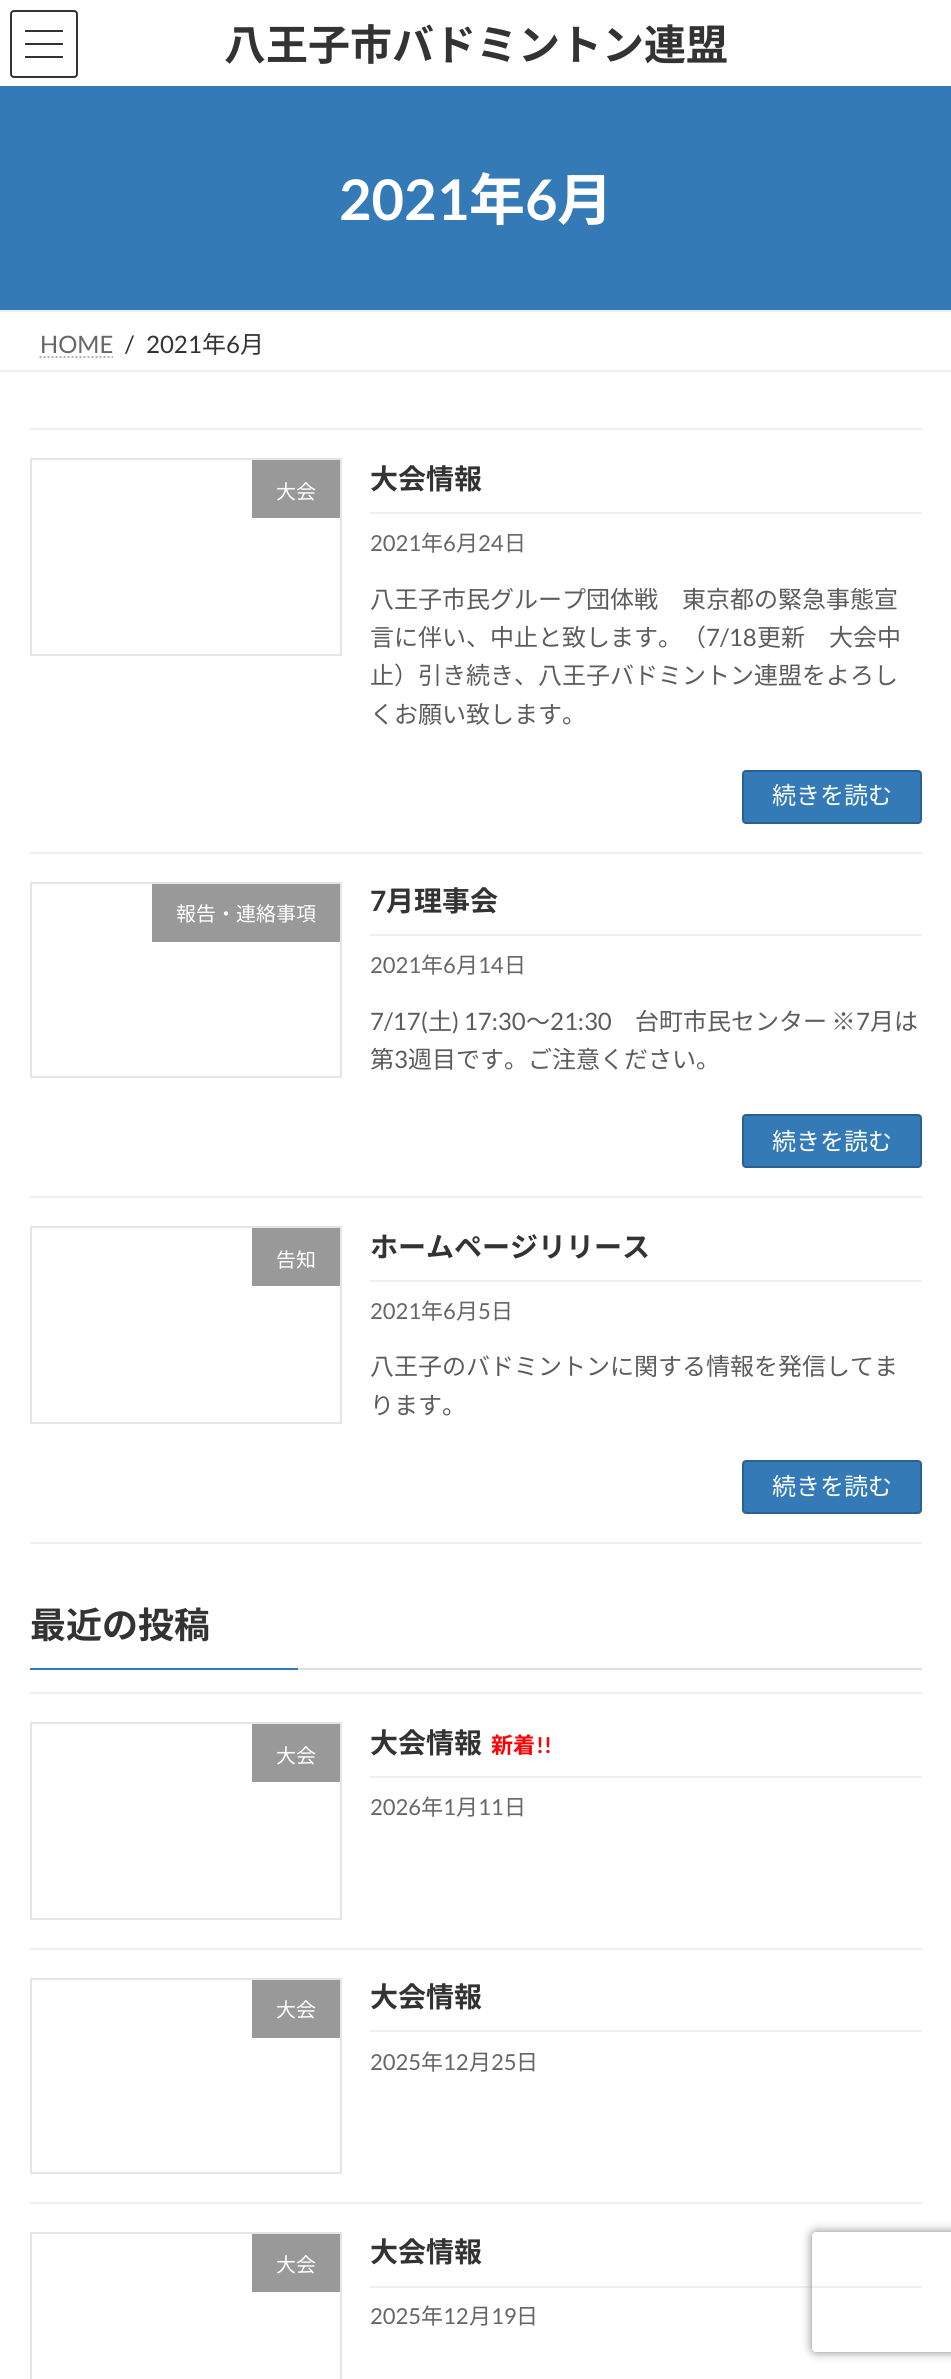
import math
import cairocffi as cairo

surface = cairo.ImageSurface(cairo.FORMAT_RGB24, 951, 2379)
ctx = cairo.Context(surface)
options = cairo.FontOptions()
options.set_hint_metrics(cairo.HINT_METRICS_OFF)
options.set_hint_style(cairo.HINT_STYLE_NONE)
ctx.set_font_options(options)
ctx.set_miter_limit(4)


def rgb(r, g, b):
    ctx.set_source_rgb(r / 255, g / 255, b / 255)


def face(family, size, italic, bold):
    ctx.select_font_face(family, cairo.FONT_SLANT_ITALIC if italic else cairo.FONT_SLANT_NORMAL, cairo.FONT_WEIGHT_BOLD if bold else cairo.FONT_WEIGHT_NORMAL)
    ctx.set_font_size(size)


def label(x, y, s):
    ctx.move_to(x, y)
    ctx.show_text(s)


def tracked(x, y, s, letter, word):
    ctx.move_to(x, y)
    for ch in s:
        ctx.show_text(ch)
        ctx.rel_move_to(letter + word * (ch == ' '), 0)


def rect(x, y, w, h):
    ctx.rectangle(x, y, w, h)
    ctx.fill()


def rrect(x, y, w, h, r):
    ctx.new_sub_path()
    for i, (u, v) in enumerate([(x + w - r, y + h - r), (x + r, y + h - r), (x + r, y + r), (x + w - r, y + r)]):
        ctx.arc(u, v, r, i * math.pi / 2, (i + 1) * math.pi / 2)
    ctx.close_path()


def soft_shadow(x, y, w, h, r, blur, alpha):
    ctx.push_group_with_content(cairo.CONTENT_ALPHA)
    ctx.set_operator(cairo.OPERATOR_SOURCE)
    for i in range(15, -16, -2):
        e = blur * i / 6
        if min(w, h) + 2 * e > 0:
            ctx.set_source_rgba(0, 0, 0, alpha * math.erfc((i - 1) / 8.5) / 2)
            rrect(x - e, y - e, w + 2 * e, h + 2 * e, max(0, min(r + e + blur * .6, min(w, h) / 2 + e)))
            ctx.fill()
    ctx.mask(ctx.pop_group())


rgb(255, 255, 255)
ctx.paint()
rgb(51, 51, 51)
rect(25, 30, 38, 2)
rect(25, 43, 38, 2)
rect(25, 56, 38, 2)
rrect(11, 11, 66, 66, 3)
ctx.stroke()
face('Noto Sans JP', 42, 0, 1)
label(224, 60, '八王子市バドミントン連盟')
rgb(51, 122, 183)
rect(0, 86, 951, 224)
face('Lato', 56, 0, 1)
rgb(255, 255, 255)
label(339, 220, '2021')
face('Noto Sans JP', 56, 0, 1)
label(469, 220, '年')
face('Lato', 56, 0, 1)
label(525, 220, '6')
face('Noto Sans JP', 56, 0, 1)
label(557, 220, '月')
rgb(240, 240, 240)
rect(0, 310, 951, 2)
rect(0, 370, 951, 2)
face('Lato', 24, 0, 0)
rgb(102, 102, 102)
label(40, 353, 'HOME')
ctx.new_path()
ctx.move_to(39.5, 357)
ctx.line_to(113, 357)
rgb(179, 179, 179)
ctx.set_dash([2, 2])
ctx.stroke()
rgb(51, 51, 51)
label(125, 353, '/')
label(146, 353, '2021')
face('Noto Sans JP', 24, 0, 0)
label(202, 353, '年')
face('Lato', 24, 0, 0)
label(226, 353, '6')
face('Noto Sans JP', 24, 0, 0)
label(240, 353, '月')
rgb(240, 240, 240)
rect(30, 428, 892, 2)
rect(30, 852, 892, 2)
ctx.rectangle(31, 459, 310, 196)
rgb(229, 229, 229)
ctx.set_dash([])
ctx.stroke()
rgb(153, 153, 153)
rect(252, 460, 88, 58)
face('Noto Sans JP', 20, 0, 0)
rgb(255, 255, 255)
label(276, 499, '大会')
rgb(240, 240, 240)
rect(370, 512, 552, 2)
face('Noto Sans JP', 28, 0, 1)
rgb(51, 51, 51)
label(370, 489, '大会情報')
face('Lato', 22, 0, 0)
rgb(102, 102, 102)
label(370, 551, '2021')
face('Noto Sans JP', 22, 0, 0)
label(421, 551, '年')
face('Lato', 22, 0, 0)
label(443, 551, '6')
face('Noto Sans JP', 22, 0, 0)
label(456, 551, '月')
face('Lato', 22, 0, 0)
label(478, 551, '24')
face('Noto Sans JP', 22, 0, 0)
label(504, 551, '日')
face('Noto Sans JP', 24, 0, 0)
rgb(92, 92, 92)
label(370, 608, '八王子市民グループ団体戦　東京都の緊急事態宣')
label(370, 646, '言に伴い、中止と致します。（')
face('Lato', 24, 0, 0)
label(706, 646, '7/18')
face('Noto Sans JP', 24, 0, 0)
label(757, 646, '更新　大会中')
label(370, 684, '止）引き続き、八王子バドミントン連盟をよろし')
label(370, 723, 'くお願い致します。')
rgb(51, 122, 183)
rrect(743, 771, 178, 52, 3)
ctx.fill_preserve()
rgb(41, 98, 146)
ctx.stroke()
rgb(255, 255, 255)
label(772, 804, '続きを読む')
rgb(240, 240, 240)
rect(30, 1196, 892, 2)
ctx.rectangle(31, 883, 310, 194)
rgb(229, 229, 229)
ctx.stroke()
rgb(153, 153, 153)
rect(152, 884, 188, 58)
face('Noto Sans JP', 20, 0, 0)
rgb(255, 255, 255)
label(176, 921, '報告・連絡事項')
rgb(240, 240, 240)
rect(370, 934, 552, 2)
face('Lato', 28, 0, 1)
rgb(51, 51, 51)
label(370, 911, '7')
face('Noto Sans JP', 28, 0, 1)
label(386, 911, '月理事会')
face('Lato', 22, 0, 0)
rgb(102, 102, 102)
label(370, 973, '2021')
face('Noto Sans JP', 22, 0, 0)
label(421, 973, '年')
face('Lato', 22, 0, 0)
label(443, 973, '6')
face('Noto Sans JP', 22, 0, 0)
label(456, 973, '月')
face('Lato', 22, 0, 0)
label(478, 973, '14')
face('Noto Sans JP', 22, 0, 0)
label(504, 973, '日')
face('Lato', 24, 0, 0)
rgb(92, 92, 92)
label(370, 1030, '7/17(')
face('Noto Sans JP', 24, 0, 0)
label(428, 1030, '土')
face('Lato', 24, 0, 0)
label(452, 1030, ') 17:30')
face('Noto Sans JP', 24, 0, 0)
label(526, 1030, '〜')
face('Lato', 24, 0, 0)
label(550, 1030, '21:30')
face('Noto Sans JP', 24, 0, 0)
tracked(635, 1030, '台町市民センター ※', 0, -1)
face('Lato', 24, 0, 0)
label(856, 1030, '7')
face('Noto Sans JP', 24, 0, 0)
label(870, 1030, '月は')
label(370, 1068, '第')
face('Lato', 24, 0, 0)
label(394, 1068, '3')
face('Noto Sans JP', 24, 0, 0)
label(408, 1068, '週目です。ご注意ください。')
rgb(51, 122, 183)
rrect(743, 1115, 178, 52, 3)
ctx.fill_preserve()
rgb(41, 98, 146)
ctx.stroke()
rgb(255, 255, 255)
label(772, 1150, '続きを読む')
rgb(240, 240, 240)
rect(30, 1542, 892, 2)
ctx.rectangle(31, 1227, 310, 196)
rgb(229, 229, 229)
ctx.stroke()
rgb(153, 153, 153)
rect(252, 1228, 88, 58)
face('Noto Sans JP', 20, 0, 0)
rgb(255, 255, 255)
label(276, 1267, '告知')
rgb(240, 240, 240)
rect(370, 1280, 552, 2)
face('Noto Sans JP', 28, 0, 1)
rgb(51, 51, 51)
label(370, 1257, 'ホームページリリース')
face('Lato', 22, 0, 0)
rgb(102, 102, 102)
label(370, 1319, '2021')
face('Noto Sans JP', 22, 0, 0)
label(421, 1319, '年')
face('Lato', 22, 0, 0)
label(443, 1319, '6')
face('Noto Sans JP', 22, 0, 0)
label(456, 1319, '月')
face('Lato', 22, 0, 0)
label(478, 1319, '5')
face('Noto Sans JP', 22, 0, 0)
label(491, 1319, '日')
face('Noto Sans JP', 24, 0, 0)
rgb(92, 92, 92)
label(370, 1375, '八王子のバドミントンに関する情報を発信してま')
label(370, 1414, 'ります。')
rgb(51, 122, 183)
rrect(743, 1461, 178, 52, 3)
ctx.fill_preserve()
rgb(41, 98, 146)
ctx.stroke()
rgb(255, 255, 255)
label(772, 1495, '続きを読む')
rgb(224, 224, 224)
rect(298, 1668, 624, 2)
face('Noto Sans JP', 36, 0, 1)
rgb(51, 51, 51)
label(30, 1638, '最近の投稿')
rgb(51, 122, 183)
rect(30, 1668, 268, 2)
rgb(240, 240, 240)
rect(30, 1692, 892, 2)
rect(30, 1948, 892, 2)
ctx.rectangle(31, 1723, 310, 196)
rgb(229, 229, 229)
ctx.stroke()
rgb(153, 153, 153)
rect(252, 1724, 88, 58)
face('Noto Sans JP', 20, 0, 0)
rgb(255, 255, 255)
label(276, 1763, '大会')
rgb(240, 240, 240)
rect(370, 1776, 552, 2)
face('Noto Sans JP', 28, 0, 1)
rgb(51, 51, 51)
label(370, 1753, '大会情報')
face('Noto Sans JP', 22, 0, 1)
rgb(255, 0, 0)
label(491, 1753, '新着')
face('Lato', 22, 0, 1)
label(536, 1753, '!!')
face('Lato', 22, 0, 0)
rgb(102, 102, 102)
label(370, 1815, '2026')
face('Noto Sans JP', 22, 0, 0)
label(421, 1815, '年')
face('Lato', 22, 0, 0)
label(443, 1815, '1')
face('Noto Sans JP', 22, 0, 0)
label(456, 1815, '月')
face('Lato', 22, 0, 0)
label(478, 1815, '11')
face('Noto Sans JP', 22, 0, 0)
label(504, 1815, '日')
rgb(240, 240, 240)
rect(30, 2202, 892, 2)
ctx.rectangle(31, 1979, 310, 194)
rgb(229, 229, 229)
ctx.stroke()
rgb(153, 153, 153)
rect(252, 1980, 88, 58)
face('Noto Sans JP', 20, 0, 0)
rgb(255, 255, 255)
label(276, 2017, '大会')
rgb(240, 240, 240)
rect(370, 2030, 552, 2)
face('Noto Sans JP', 28, 0, 1)
rgb(51, 51, 51)
label(370, 2007, '大会情報')
face('Lato', 22, 0, 0)
rgb(102, 102, 102)
label(370, 2070, '2025')
face('Noto Sans JP', 22, 0, 0)
label(421, 2070, '年')
face('Lato', 22, 0, 0)
label(443, 2070, '12')
face('Noto Sans JP', 22, 0, 0)
label(469, 2070, '月')
face('Lato', 22, 0, 0)
label(491, 2070, '25')
face('Noto Sans JP', 22, 0, 0)
label(516, 2070, '日')
ctx.rectangle(31, 2233, 310, 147)
rgb(229, 229, 229)
ctx.stroke()
rgb(153, 153, 153)
rect(252, 2234, 88, 58)
face('Noto Sans JP', 20, 0, 0)
rgb(255, 255, 255)
label(276, 2272, '大会')
rgb(240, 240, 240)
rect(370, 2286, 552, 2)
face('Noto Sans JP', 28, 0, 1)
rgb(51, 51, 51)
label(370, 2262, '大会情報')
face('Lato', 22, 0, 0)
rgb(102, 102, 102)
label(370, 2324, '2025')
face('Noto Sans JP', 22, 0, 0)
label(421, 2324, '年')
face('Lato', 22, 0, 0)
label(443, 2324, '12')
face('Noto Sans JP', 22, 0, 0)
label(469, 2324, '月')
face('Lato', 22, 0, 0)
label(491, 2324, '19')
face('Noto Sans JP', 22, 0, 0)
label(516, 2324, '日')
ctx.save()
ctx.set_fill_rule(cairo.FILL_RULE_EVEN_ODD)
ctx.new_path()
ctx.move_to(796, 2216)
ctx.line_to(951, 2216)
ctx.line_to(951, 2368)
ctx.line_to(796, 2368)
ctx.close_path()
ctx.move_to(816, 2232)
ctx.line_to(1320, 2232)
ctx.curve_to(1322, 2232, 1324, 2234, 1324, 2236)
ctx.line_to(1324, 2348)
ctx.curve_to(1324, 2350, 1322, 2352, 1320, 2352)
ctx.line_to(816, 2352)
ctx.curve_to(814, 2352, 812, 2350, 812, 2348)
ctx.line_to(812, 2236)
ctx.curve_to(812, 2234, 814, 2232, 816, 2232)
ctx.close_path()
ctx.clip()
rgb(128, 128, 128)
soft_shadow(812, 2232, 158, 120, 4, 5, 1)
ctx.restore()
surface.write_to_png('render.png')
